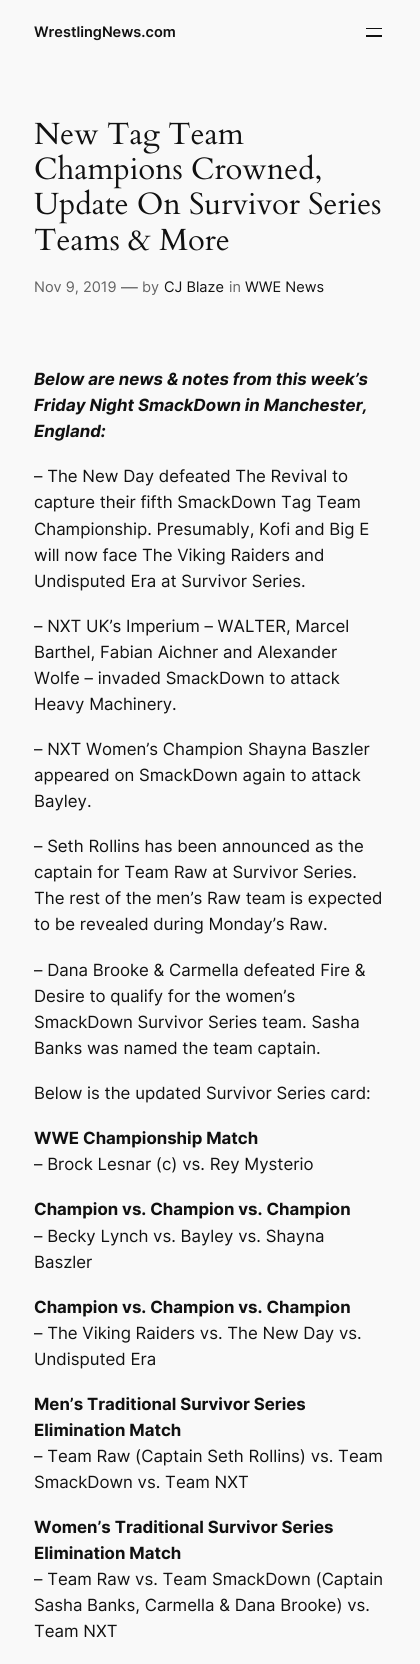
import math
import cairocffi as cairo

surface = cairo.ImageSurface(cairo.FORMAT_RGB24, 420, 1664)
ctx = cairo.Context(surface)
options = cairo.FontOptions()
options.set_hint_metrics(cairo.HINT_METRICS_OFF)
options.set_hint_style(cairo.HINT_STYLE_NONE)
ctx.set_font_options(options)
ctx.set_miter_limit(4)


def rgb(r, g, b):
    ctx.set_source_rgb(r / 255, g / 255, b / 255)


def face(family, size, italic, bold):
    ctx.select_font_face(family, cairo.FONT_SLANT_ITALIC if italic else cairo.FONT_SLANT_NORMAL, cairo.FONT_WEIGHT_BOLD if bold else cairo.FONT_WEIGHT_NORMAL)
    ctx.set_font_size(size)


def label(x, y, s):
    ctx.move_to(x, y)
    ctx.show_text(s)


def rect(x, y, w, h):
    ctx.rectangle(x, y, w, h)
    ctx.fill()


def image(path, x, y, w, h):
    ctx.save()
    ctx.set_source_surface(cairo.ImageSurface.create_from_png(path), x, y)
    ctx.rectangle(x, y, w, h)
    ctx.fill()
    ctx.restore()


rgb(249, 249, 249)
ctx.paint()
face('Inter SemiBold', 14.5, 0, 0)
rgb(17, 17, 17)
label(34, 37, 'WrestlingNews.com')
rect(366, 28, 16, 1)
rect(366, 35, 16, 2)
image('image0.png', 34, 122, 210, 32)
image('image1.png', 35, 154, 286, 35)
image('image2.png', 34, 189, 347, 35)
image('image3.png', 34, 228, 195, 23)
face('Inter', 14.5, 0, 0)
rgb(99, 99, 99)
label(34, 292, 'Nov 9, 2019')
face('Inter', 16.8, 0, 0)
label(121, 293, '—')
face('Inter', 14.5, 0, 0)
label(142, 292, 'by')
rgb(17, 17, 17)
label(164, 292, 'CJ Blaze')
rgb(99, 99, 99)
label(229, 292, 'in')
rgb(17, 17, 17)
label(245, 292, 'WWE News')
face('Inter', 16.8, 1, 1)
label(34, 385, 'Below are news & notes from this week’s')
label(34, 411, 'Friday Night SmackDown in Manchester,')
label(34, 437, 'England:')
face('Inter', 16.8, 0, 0)
label(34, 482, '– The New Day defeated The Revival to')
label(34, 508, 'capture their fifth SmackDown Tag Team')
label(34, 535, 'Championship. Presumably, Kofi and Big E')
label(34, 561, 'will now face The Viking Raiders and')
label(34, 587, 'Undisputed Era at Survivor Series.')
label(34, 632, '– NXT UK’s Imperium – WALTER, Marcel')
label(34, 658, 'Barthel, Fabian Aichner and Alexander')
label(34, 684, 'Wolfe – invaded SmackDown to attack')
label(34, 710, 'Heavy Machinery.')
label(34, 755, '– NXT Women’s Champion Shayna Baszler')
label(34, 781, 'appeared on SmackDown again to attack')
label(34, 807, 'Bayley.')
label(34, 852, '– Seth Rollins has been announced as the')
label(34, 878, 'captain for Team Raw at Survivor Series.')
label(34, 904, 'The rest of the men’s Raw team is expected')
label(34, 930, 'to be revealed during Monday’s Raw.')
label(34, 976, '– Dana Brooke & Carmella defeated Fire &')
label(34, 1002, 'Desire to qualify for the women’s')
label(34, 1028, 'SmackDown Survivor Series team. Sasha')
label(34, 1054, 'Banks was named the team captain.')
label(34, 1099, 'Below is the updated Survivor Series card:')
face('Inter', 16.8, 0, 1)
label(34, 1144, 'WWE Championship Match')
face('Inter', 16.8, 0, 0)
label(34, 1170, '– Brock Lesnar (c) vs. Rey Mysterio')
face('Inter', 16.8, 0, 1)
label(34, 1215, 'Champion vs. Champion vs. Champion')
face('Inter', 16.8, 0, 0)
label(34, 1242, '– Becky Lynch vs. Bayley vs. Shayna')
label(34, 1268, 'Baszler')
face('Inter', 16.8, 0, 1)
label(34, 1313, 'Champion vs. Champion vs. Champion')
face('Inter', 16.8, 0, 0)
label(34, 1339, '– The Viking Raiders vs. The New Day vs.')
label(34, 1365, 'Undisputed Era')
face('Inter', 16.8, 0, 1)
label(34, 1410, 'Men’s Traditional Survivor Series')
label(34, 1436, 'Elimination Match')
face('Inter', 16.8, 0, 0)
label(34, 1462, '– Team Raw (Captain Seth Rollins) vs. Team')
label(34, 1488, 'SmackDown vs. Team NXT')
face('Inter', 16.8, 0, 1)
label(34, 1533, 'Women’s Traditional Survivor Series')
label(34, 1559, 'Elimination Match')
face('Inter', 16.8, 0, 0)
label(34, 1585, '– Team Raw vs. Team SmackDown (Captain')
label(34, 1611, 'Sasha Banks, Carmella & Dana Brooke) vs.')
label(34, 1637, 'Team NXT')
surface.write_to_png('render.png')
